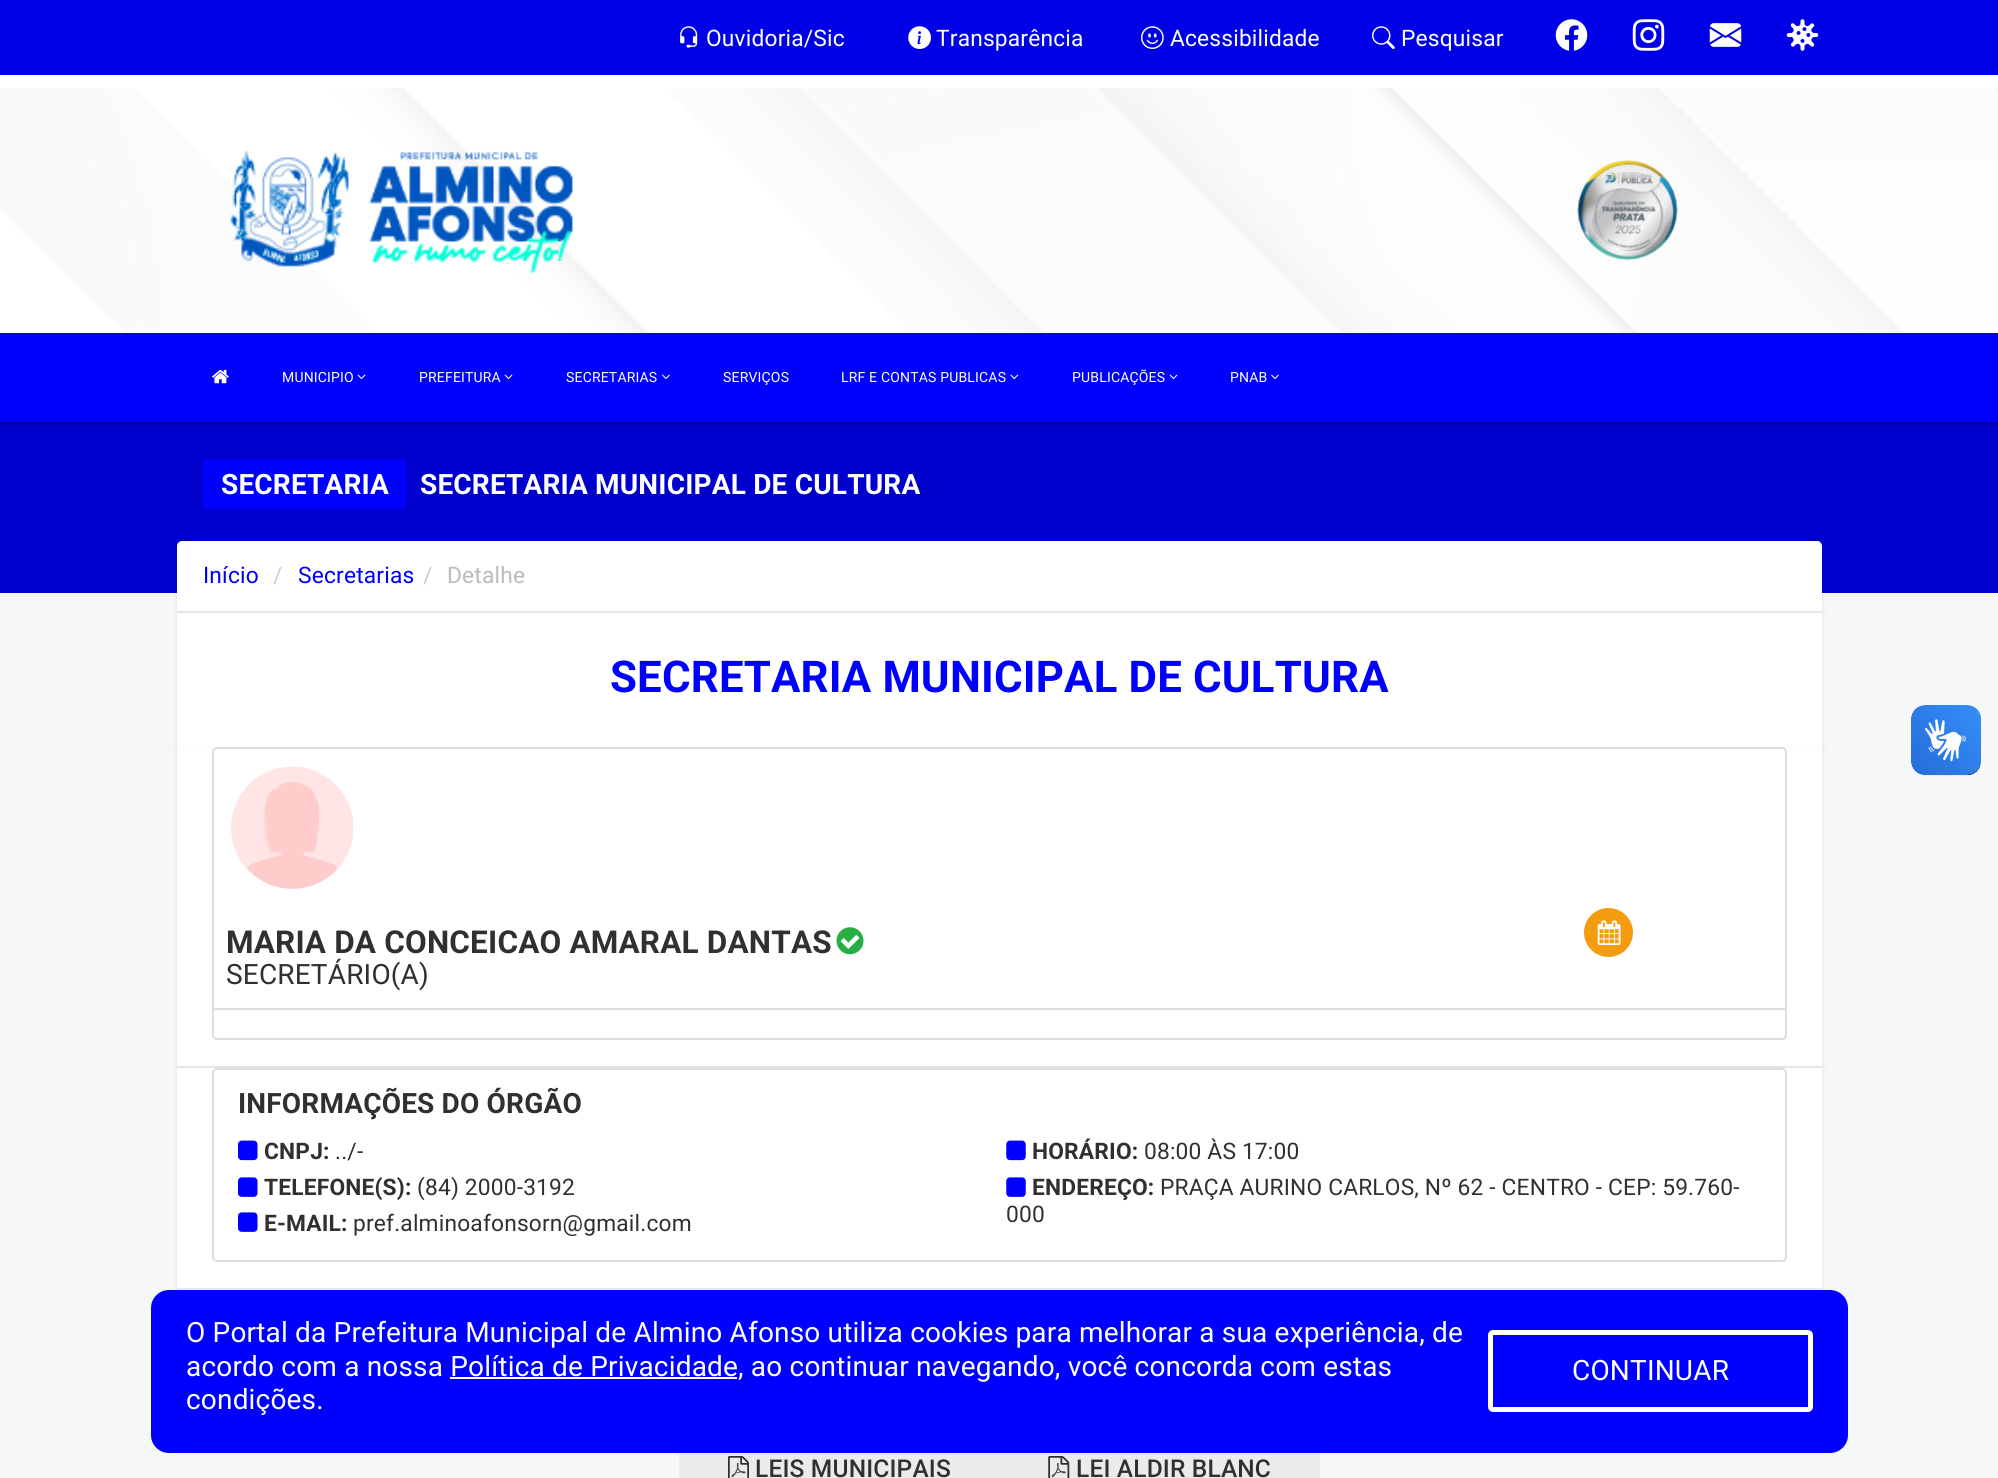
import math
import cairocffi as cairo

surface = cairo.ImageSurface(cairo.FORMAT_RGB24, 1998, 1478)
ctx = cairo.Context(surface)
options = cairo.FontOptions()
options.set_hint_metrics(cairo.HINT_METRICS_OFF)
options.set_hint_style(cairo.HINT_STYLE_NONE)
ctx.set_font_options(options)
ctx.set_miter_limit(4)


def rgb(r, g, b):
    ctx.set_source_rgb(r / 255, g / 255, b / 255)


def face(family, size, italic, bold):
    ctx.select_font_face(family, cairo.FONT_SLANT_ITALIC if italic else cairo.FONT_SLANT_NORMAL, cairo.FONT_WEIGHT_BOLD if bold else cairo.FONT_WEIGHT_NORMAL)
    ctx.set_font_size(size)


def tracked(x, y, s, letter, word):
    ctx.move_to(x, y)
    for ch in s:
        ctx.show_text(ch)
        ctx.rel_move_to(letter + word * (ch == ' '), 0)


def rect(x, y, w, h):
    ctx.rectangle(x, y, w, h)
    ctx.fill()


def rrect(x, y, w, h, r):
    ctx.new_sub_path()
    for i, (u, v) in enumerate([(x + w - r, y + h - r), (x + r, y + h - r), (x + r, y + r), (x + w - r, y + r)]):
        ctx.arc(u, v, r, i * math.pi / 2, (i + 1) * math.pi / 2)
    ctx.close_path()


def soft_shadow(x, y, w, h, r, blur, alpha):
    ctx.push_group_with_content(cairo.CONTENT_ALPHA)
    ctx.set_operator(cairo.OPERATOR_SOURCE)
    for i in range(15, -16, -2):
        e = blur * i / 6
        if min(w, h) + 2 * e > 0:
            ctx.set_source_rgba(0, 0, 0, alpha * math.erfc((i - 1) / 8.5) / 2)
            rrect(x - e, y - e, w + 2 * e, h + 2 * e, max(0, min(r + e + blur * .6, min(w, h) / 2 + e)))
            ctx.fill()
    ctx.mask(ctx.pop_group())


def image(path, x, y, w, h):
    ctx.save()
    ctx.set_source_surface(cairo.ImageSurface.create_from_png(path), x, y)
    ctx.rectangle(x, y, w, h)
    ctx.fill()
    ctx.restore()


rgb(246, 247, 248)
ctx.paint()
rgb(3, 0, 71)
soft_shadow(177, 543, 1645, 70, 0, 2.5, 0.09)
rgb(0, 0, 205)
rect(0, 422, 1998, 171)
rgb(0, 0, 0)
soft_shadow(0, 2, 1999, 422, 0, 2, 0.3)
image('image0.png', 0, 88, 1998, 245)
rgb(0, 0, 230)
rect(0, 0, 1998, 75)
image('image1.png', 680, 26, 18, 22)
face('Roboto', 22.75, 0, 0)
rgb(255, 255, 255)
tracked(706, 46, 'Ouvidoria/Sic', 0.18, 0)
image('image2.png', 908, 26, 23, 23)
tracked(936, 46, 'Transparência', 0.18, 0)
image('image3.png', 1141, 26, 23, 23)
tracked(1170, 46, 'Acessibilidade', 0.18, 0)
image('image4.png', 1372, 26, 23, 23)
tracked(1401, 46, 'Pesquisar', 0.18, 0)
image('image5.png', 1555, 19, 33, 32)
image('image6.png', 1632, 19, 33, 32)
image('image7.png', 1709, 23, 33, 24)
image('image8.png', 1786, 19, 33, 32)
rect(0, 75, 1998, 13)
image('image9.png', 229, 150, 344, 124)
image('image10.png', 1577, 159, 101, 102)
rgb(0, 0, 255)
rect(0, 333, 1998, 89)
image('image11.png', 212, 369, 17, 15)
face('Roboto', 14, 0, 0)
rgb(255, 255, 255)
tracked(282, 382, 'MUNICIPIO', 0.18, 0)
image('image12.png', 357, 374, 9, 6)
tracked(419, 382, 'PREFEITURA', 0.18, 0)
image('image12.png', 504, 374, 9, 6)
tracked(566, 382, 'SECRETARIAS', 0.18, 0)
image('image13.png', 662, 374, 8, 6)
tracked(723, 382, 'SERVIÇOS', 0.18, 0)
tracked(841, 382, 'LRF E CONTAS PUBLICAS', 0.18, 0)
image('image14.png', 1010, 374, 9, 6)
tracked(1072, 382, 'PUBLICAÇÕES', 0.18, 0)
image('image12.png', 1169, 374, 9, 6)
tracked(1230, 382, 'PNAB', 0.18, 0)
image('image13.png', 1271, 374, 8, 6)
rgb(0, 0, 255)
rect(203, 459, 203, 50)
face('Roboto', 28, 0, 1)
rgb(255, 255, 255)
tracked(221, 494, 'SECRETARIA', 0.18, 0)
tracked(420, 494, 'SECRETARIA MUNICIPAL DE CULTURA', 0.18, 0)
rect(177, 606, 1645, 5)
rgb(3, 0, 71)
soft_shadow(177, 614, 1645, 135, 0, 2.5, 0.09)
rgb(255, 255, 255)
rrect(177, 541, 1645, 70, 5)
ctx.fill()
face('Roboto', 22.75, 0, 0)
rgb(0, 0, 255)
tracked(203, 583, 'Início', 0.18, 0)
rgb(204, 204, 204)
tracked(273, 583, '/', 0.18, 0)
rgb(0, 0, 255)
tracked(298, 583, 'Secretarias', 0.18, 0)
rgb(204, 204, 204)
tracked(423, 583, '/', 0.18, 0)
rgb(187, 187, 187)
tracked(447, 583, 'Detalhe', 0.18, 0)
rgb(255, 255, 255)
rect(177, 613, 1645, 134)
face('Roboto', 43.75, 0, 1)
rgb(0, 0, 255)
tracked(610, 692, 'SECRETARIA MUNICIPAL DE CULTURA', 0.18, 0)
rgb(3, 0, 71)
soft_shadow(177, 749, 1645, 319, 0, 2.5, 0.09)
rgb(255, 255, 255)
rect(177, 747, 1645, 319)
rrect(213, 748, 1573, 291, 4)
rgb(221, 221, 221)
ctx.stroke()
rect(214, 1008, 1571, 2)
image('image15.png', 231, 766, 123, 123)
face('Roboto', 31.5, 0, 1)
rgb(48, 48, 48)
tracked(226, 953, 'MARIA DA CONCEICAO AMARAL DANTAS', 0.18, 0)
image('image16.png', 836, 927, 28, 28)
face('Roboto', 28, 0, 0)
tracked(226, 984, 'SECRETÁRIO(A)', 0.18, 0)
rgb(243, 156, 18)
ctx.new_path()
ctx.arc(1608.5, 932.5, 23.5, 0, 2 * math.pi)
ctx.fill_preserve()
ctx.stroke()
image('image17.png', 1597, 920, 24, 25)
rgb(3, 0, 71)
soft_shadow(177, 1069, 1645, 221, 0, 2.5, 0.09)
rgb(255, 255, 255)
rect(177, 1068, 1645, 220)
rrect(213, 1069, 1573, 192, 4)
rgb(221, 221, 221)
ctx.stroke()
face('Roboto', 28, 0, 1)
rgb(48, 48, 48)
tracked(238, 1113, 'INFORMAÇÕES DO ÓRGÃO', 0.18, 0)
image('image18.png', 238, 1140, 20, 21)
face('Roboto', 22.75, 0, 1)
tracked(264, 1159, 'CNPJ:', 0.18, 0)
face('Roboto', 22.75, 0, 0)
tracked(335, 1159, '../-', 0.18, 0)
image('image19.png', 238, 1177, 20, 20)
face('Roboto', 22.75, 0, 1)
tracked(264, 1195, 'TELEFONE(S):', 0.18, 0)
face('Roboto', 22.75, 0, 0)
tracked(417, 1195, '(84) 2000-3192', 0.18, 0)
image('image19.png', 238, 1212, 20, 20)
face('Roboto', 22.75, 0, 1)
tracked(264, 1231, 'E-MAIL:', 0.18, 0)
face('Roboto', 22.75, 0, 0)
tracked(353, 1231, 'pref.alminoafonsorn@gmail.com', 0.18, 0)
image('image20.png', 1006, 1140, 20, 21)
face('Roboto', 22.75, 0, 1)
tracked(1032, 1159, 'HORÁRIO:', 0.18, 0)
face('Roboto', 22.75, 0, 0)
tracked(1144, 1159, '08:00 ÀS 17:00', 0.18, 0)
image('image21.png', 1006, 1177, 20, 20)
face('Roboto', 22.75, 0, 1)
tracked(1032, 1195, 'ENDEREÇO:', 0.18, 0)
face('Roboto', 22.75, 0, 0)
tracked(1160, 1195, 'PRAÇA AURINO CARLOS, Nº 62 - CENTRO - CEP: 59.760-', 0.18, 0)
tracked(1006, 1222, '000', 0.18, 0)
rgb(234, 235, 236)
rect(679, 1453, 641, 25)
image('image22.png', 728, 1456, 21, 22)
face('Roboto Medium', 24.5, 0, 0)
rgb(48, 48, 48)
tracked(755, 1477, 'LEIS MUNICIPAIS', 0.18, 0)
image('image23.png', 1048, 1456, 22, 22)
tracked(1076, 1477, 'LEI ALDIR BLANC', 0.18, 0)
image('image24.png', 1911, 705, 70, 71)
image('image25.png', 1911, 705, 70, 70)
rgb(0, 0, 255)
rrect(151, 1290, 1697, 163, 18)
ctx.fill()
face('Roboto', 28, 0, 0)
rgb(255, 255, 255)
tracked(186, 1342, 'O Portal da Prefeitura Municipal de Almino Afonso utiliza cookies para melhorar a sua experiência, de', 0.18, 0)
tracked(186, 1376, 'acordo com a nossa Política de Privacidade, ao continuar navegando, você concorda com estas', 0.18, 0)
rect(450, 1377, 287, 2)
tracked(186, 1409, 'condições.', 0.18, 0)
rrect(1490.5, 1332.5, 320, 77, 2.5)
ctx.set_line_width(5)
ctx.stroke()
tracked(1572, 1380, 'CONTINUAR', 0.18, 0)
surface.write_to_png('render.png')
